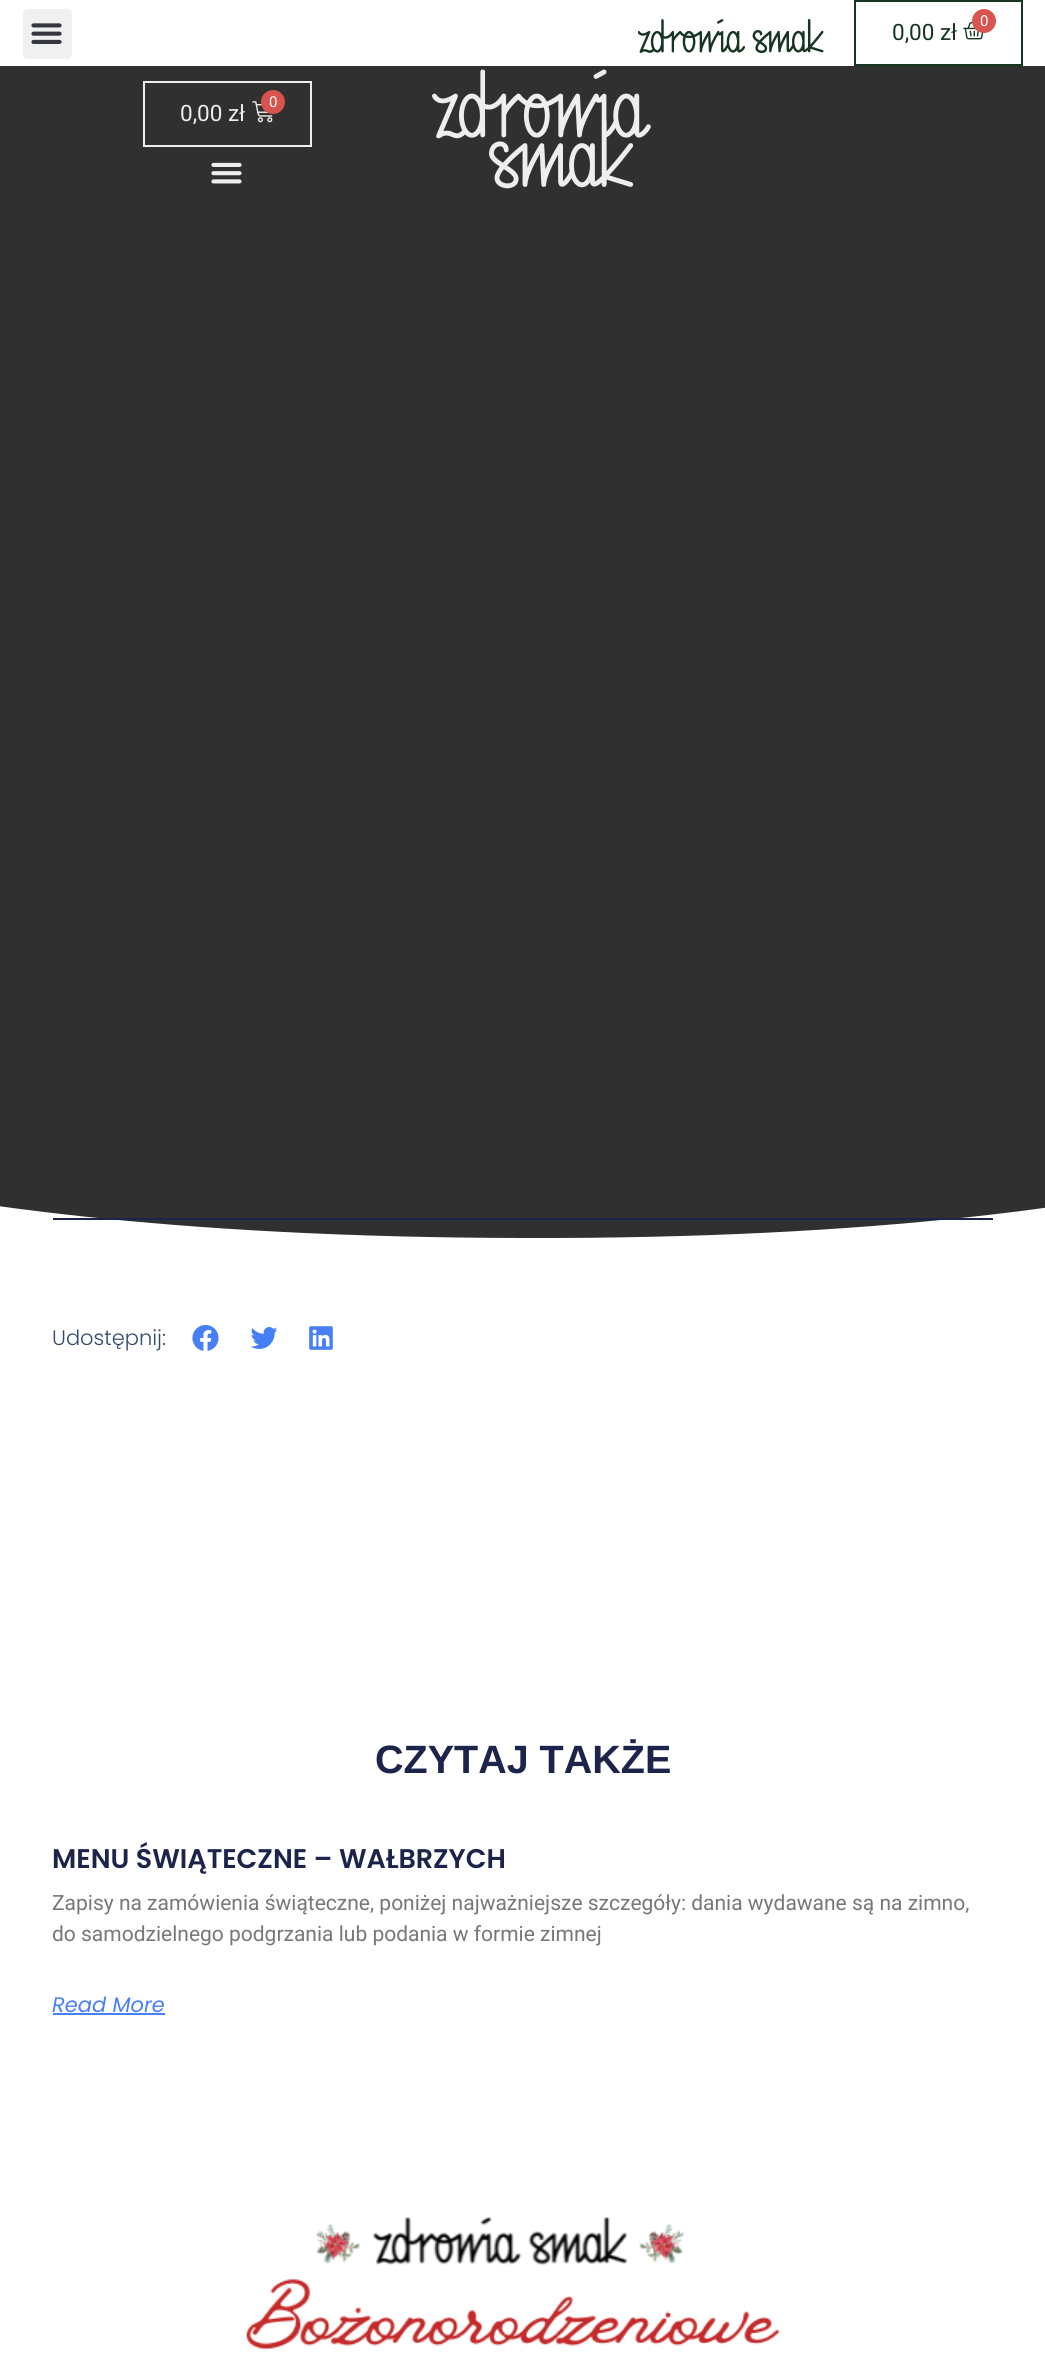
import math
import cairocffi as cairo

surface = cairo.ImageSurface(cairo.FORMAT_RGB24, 1045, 2355)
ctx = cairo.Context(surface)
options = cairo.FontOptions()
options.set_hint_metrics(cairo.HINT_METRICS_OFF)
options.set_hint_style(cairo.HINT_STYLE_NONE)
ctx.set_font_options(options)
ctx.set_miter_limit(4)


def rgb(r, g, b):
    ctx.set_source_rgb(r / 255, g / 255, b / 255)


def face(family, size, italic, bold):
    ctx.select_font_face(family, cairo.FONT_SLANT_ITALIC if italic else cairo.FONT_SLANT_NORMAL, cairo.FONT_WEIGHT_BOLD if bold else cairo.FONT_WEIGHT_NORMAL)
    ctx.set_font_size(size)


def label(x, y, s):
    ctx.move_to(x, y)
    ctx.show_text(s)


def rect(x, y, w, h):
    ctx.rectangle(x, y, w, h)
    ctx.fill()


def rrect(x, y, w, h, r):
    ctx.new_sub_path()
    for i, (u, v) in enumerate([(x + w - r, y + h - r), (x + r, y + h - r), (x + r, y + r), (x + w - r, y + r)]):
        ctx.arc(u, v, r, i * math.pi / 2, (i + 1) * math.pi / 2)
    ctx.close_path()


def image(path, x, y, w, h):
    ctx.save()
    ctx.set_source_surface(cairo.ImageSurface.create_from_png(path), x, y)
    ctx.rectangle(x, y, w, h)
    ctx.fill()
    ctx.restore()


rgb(255, 255, 255)
ctx.paint()
rgb(240, 240, 240)
rrect(23, 9, 49, 50, 5)
ctx.fill()
image('image0.png', 31, 23, 31, 21)
image('image1.png', 638, 19, 186, 35)
ctx.rectangle(855, 1, 167, 64)
rgb(23, 54, 33)
ctx.stroke()
image('image2.png', 963, 22, 21, 18)
rgb(217, 83, 79)
ctx.arc(984, 21, 12, 0, 2 * math.pi)
ctx.fill()
face('Roboto', 15, 0, 0)
rgb(255, 255, 255)
label(980, 26, '0')
face('Roboto', 22.5, 0, 0)
rgb(23, 54, 33)
label(892, 40, '0,00 zł')
rgb(48, 48, 48)
rect(0, 66, 1045, 1172)
rgb(255, 255, 255)
ctx.new_path()
ctx.move_to(524, 1238)
ctx.curve_to(-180, 1237, -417, 1104, -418, 1070)
ctx.line_to(-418, 1244)
ctx.line_to(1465, 1244)
ctx.line_to(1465, 1071)
ctx.curve_to(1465, 1103, 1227, 1240, 524, 1238)
ctx.close_path()
ctx.fill()
ctx.rectangle(144, 82, 167, 64)
rgb(238, 238, 238)
ctx.stroke()
image('image3.png', 252, 101, 21, 22)
rgb(217, 83, 79)
ctx.arc(273, 102, 12, 0, 2 * math.pi)
ctx.fill()
face('Roboto', 15, 0, 0)
rgb(255, 255, 255)
label(269, 107, '0')
face('Roboto', 22.5, 0, 0)
rgb(238, 238, 238)
label(180, 121, '0,00 zł')
image('image4.png', 211, 162, 31, 22)
image('image5.png', 432, 69, 219, 120)
rgb(28, 36, 75)
rect(53, 1218, 940, 2)
face('Poppins Light', 21, 0, 0)
rgb(50, 74, 109)
label(52, 1345, 'Udostępnij:')
image('image6.png', 192, 1325, 27, 26)
image('image7.png', 251, 1327, 27, 22)
image('image8.png', 309, 1326, 24, 24)
face('Arimo', 39.5, 0, 1)
rgb(28, 36, 75)
label(375, 1773, 'CZYTAJ TAKŻE')
face('Poppins SemiBold', 27, 0, 0)
label(52, 1868, 'MENU ŚWIĄTECZNE – WAŁBRZYCH')
face('Roboto', 21, 0, 0)
rgb(119, 119, 119)
label(52, 1910, 'Zapisy na zamówienia świąteczne, poniżej najważniejsze szczegóły: dania wydawane są na zimno,')
label(52, 1941, 'do samodzielnego podgrzania lub podania w formie zimnej')
face('Poppins', 21, 1, 0)
rgb(70, 127, 247)
label(52, 2012, 'Read More')
rect(53, 2013, 112, 2)
image('image9.png', 246, 2217, 534, 133)
surface.write_to_png('render.png')
